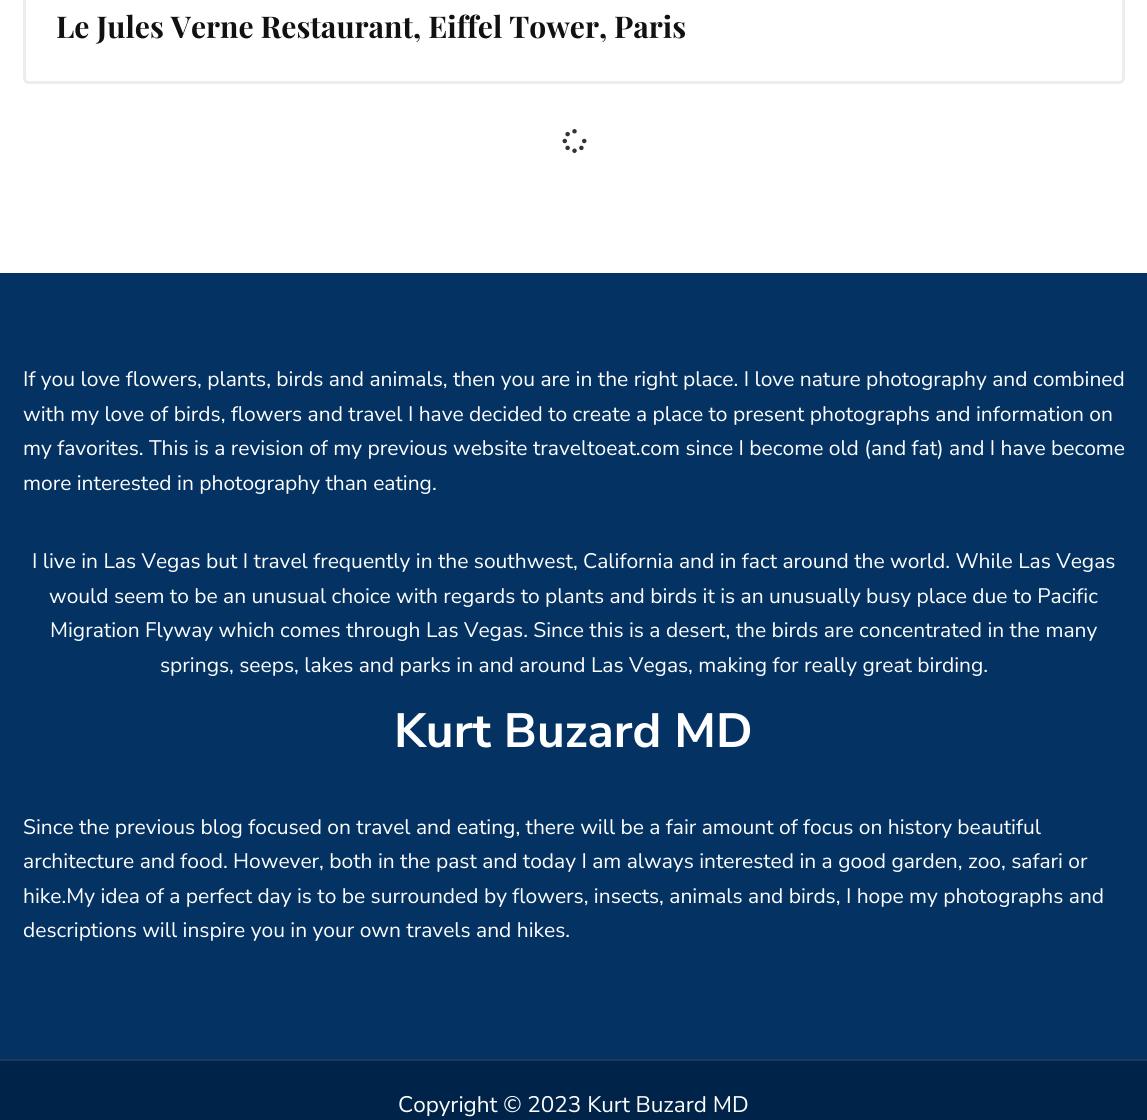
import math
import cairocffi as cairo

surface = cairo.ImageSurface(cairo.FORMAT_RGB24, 1147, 1120)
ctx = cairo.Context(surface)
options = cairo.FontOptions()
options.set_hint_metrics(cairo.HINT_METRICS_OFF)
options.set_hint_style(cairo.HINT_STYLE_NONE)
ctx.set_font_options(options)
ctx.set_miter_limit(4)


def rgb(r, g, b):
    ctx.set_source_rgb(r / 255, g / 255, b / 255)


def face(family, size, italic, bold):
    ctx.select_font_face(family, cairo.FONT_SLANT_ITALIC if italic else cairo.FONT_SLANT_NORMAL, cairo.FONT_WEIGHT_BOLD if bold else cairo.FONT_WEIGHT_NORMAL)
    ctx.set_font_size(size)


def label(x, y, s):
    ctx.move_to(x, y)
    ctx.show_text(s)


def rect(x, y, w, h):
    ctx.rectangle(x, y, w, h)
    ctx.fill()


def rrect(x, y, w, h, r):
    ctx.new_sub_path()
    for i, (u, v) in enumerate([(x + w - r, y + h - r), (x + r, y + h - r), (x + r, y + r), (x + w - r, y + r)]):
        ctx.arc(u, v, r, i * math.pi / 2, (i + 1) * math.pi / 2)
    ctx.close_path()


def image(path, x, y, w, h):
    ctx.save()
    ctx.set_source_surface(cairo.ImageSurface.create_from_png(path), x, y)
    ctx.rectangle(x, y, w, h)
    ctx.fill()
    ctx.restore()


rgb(255, 255, 255)
ctx.paint()
rrect(24.5, -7.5, 1099, 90, 4.5)
rgb(237, 237, 237)
ctx.set_line_width(3)
ctx.stroke()
face('Playfair Display', 30, 0, 1)
rgb(17, 17, 17)
label(56, 38, 'Le Jules Verne Restaurant, Eiffel Tower, Paris')
image('image0.png', 562, 129, 25, 24)
rgb(4, 51, 99)
rect(0, 273, 1147, 786)
face('Nunito Sans', 21, 0, 0)
rgb(255, 255, 255)
label(23, 386, 'If you love flowers, plants, birds and animals, then you are in the right place. I love nature photography and combined')
label(23, 421, 'with my love of birds, flowers and travel I have decided to create a place to present photographs and information on')
label(23, 455, 'my favorites. This is a revision of my previous website traveltoeat.com since I become old (and fat) and I have become')
label(23, 490, 'more interested in photography than eating.')
label(32, 568, 'I live in Las Vegas but I travel frequently in the southwest, California and in fact around the world. While Las Vegas')
label(49, 603, 'would seem to be an unusual choice with regards to plants and birds it is an unusually busy place due to Pacific')
label(50, 637, 'Migration Flyway which comes through Las Vegas. Since this is a desert, the birds are concentrated in the many')
label(160, 672, 'springs, seeps, lakes and parks in and around Las Vegas, making for really great birding.')
face('Nunito Sans', 48, 0, 1)
label(394, 747, 'Kurt Buzard MD')
face('Nunito Sans', 21, 0, 0)
label(23, 834, 'Since the previous blog focused on travel and eating, there will be a fair amount of focus on history beautiful')
label(23, 868, 'architecture and food. However, both in the past and today I am always interested in a good garden, zoo, safari or')
label(23, 903, 'hike.My idea of a perfect day is to be surrounded by flowers, insects, animals and birds, I hope my photographs and')
label(23, 937, 'descriptions will inspire you in your own travels and hikes.')
rgb(0, 36, 73)
rect(0, 1061, 1147, 59)
rgb(26, 58, 91)
rect(0, 1059, 1147, 2)
face('Nunito Sans', 22.5, 0, 0)
rgb(255, 255, 255)
label(398, 1112, 'Copyright © 2023 Kurt Buzard MD')
surface.write_to_png('render.png')
